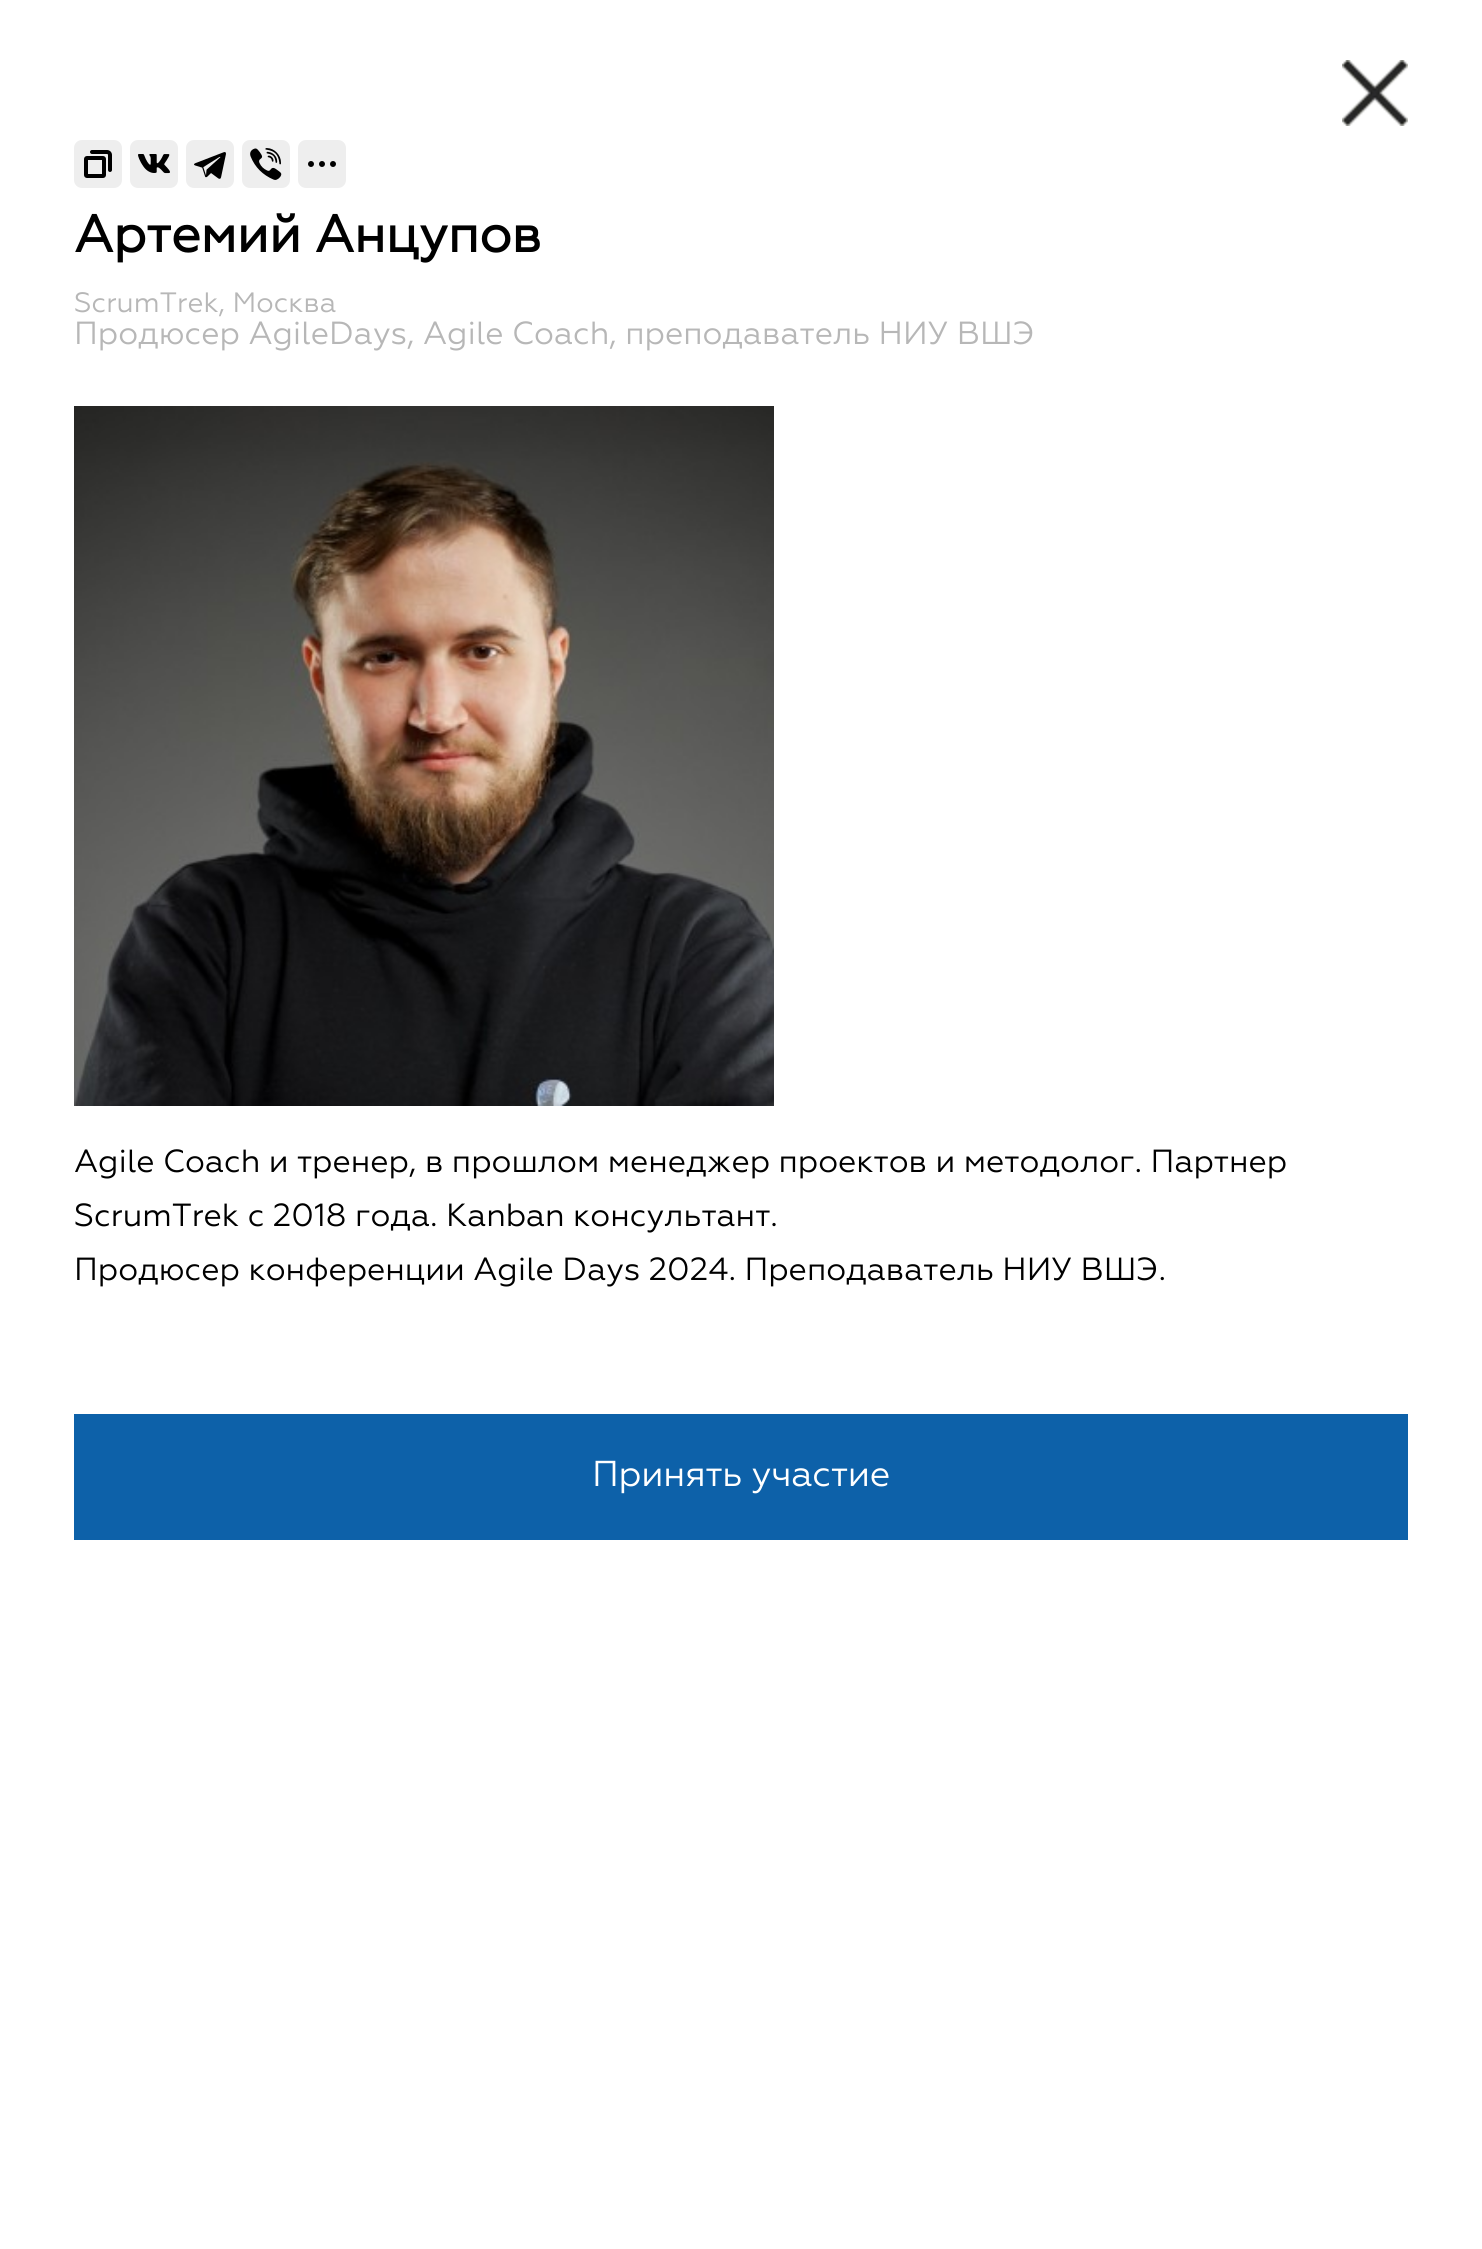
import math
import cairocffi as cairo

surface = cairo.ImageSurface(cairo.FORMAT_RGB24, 1482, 2249)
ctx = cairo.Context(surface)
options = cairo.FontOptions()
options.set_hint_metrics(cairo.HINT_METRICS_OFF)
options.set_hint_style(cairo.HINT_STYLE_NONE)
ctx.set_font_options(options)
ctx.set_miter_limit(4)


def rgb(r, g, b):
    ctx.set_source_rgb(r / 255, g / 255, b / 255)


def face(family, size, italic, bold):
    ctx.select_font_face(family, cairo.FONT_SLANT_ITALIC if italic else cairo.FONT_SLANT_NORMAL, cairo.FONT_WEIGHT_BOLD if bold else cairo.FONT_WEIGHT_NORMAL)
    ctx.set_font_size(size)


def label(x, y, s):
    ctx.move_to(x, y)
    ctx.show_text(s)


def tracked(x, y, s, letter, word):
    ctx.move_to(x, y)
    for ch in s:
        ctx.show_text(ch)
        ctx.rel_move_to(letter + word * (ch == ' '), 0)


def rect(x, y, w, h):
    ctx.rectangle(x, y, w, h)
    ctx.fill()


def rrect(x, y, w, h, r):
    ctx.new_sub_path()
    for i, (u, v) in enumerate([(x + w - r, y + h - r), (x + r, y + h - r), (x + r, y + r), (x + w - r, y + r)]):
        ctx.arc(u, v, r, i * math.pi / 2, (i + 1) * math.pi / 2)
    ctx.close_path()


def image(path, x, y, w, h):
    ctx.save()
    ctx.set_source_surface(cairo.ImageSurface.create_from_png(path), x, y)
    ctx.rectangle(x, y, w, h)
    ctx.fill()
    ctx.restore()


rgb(255, 255, 255)
ctx.paint()
image('image0.png', 1342, 60, 66, 66)
rgb(238, 238, 238)
rrect(74, 140, 48, 48, 8)
ctx.fill()
image('image1.png', 84, 150, 28, 28)
rrect(130, 140, 48, 48, 8)
ctx.fill()
image('image2.png', 138, 154, 32, 20)
rrect(186, 140, 48, 48, 8)
ctx.fill()
image('image3.png', 194, 152, 32, 27)
rrect(242, 140, 48, 48, 8)
ctx.fill()
image('image4.png', 250, 148, 32, 32)
rrect(298, 140, 48, 48, 8)
ctx.fill()
image('image5.png', 308, 161, 28, 6)
face('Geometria', 52, 0, 1)
rgb(0, 0, 0)
label(74, 252, 'Артемий Анцупов')
face('Geometria', 28, 0, 0)
rgb(183, 183, 183)
label(74, 312, 'ScrumTrek, Москва')
face('Geometria', 32, 0, 0)
label(74, 344, 'Продюсер AgileDays, Agile Coach, преподаватель НИУ ВШЭ')
image('image6.png', 74, 406, 700, 700)
rgb(0, 0, 0)
label(74, 1172, 'Agile Coach и тренер, в прошлом менеджер проектов и методолог. Партнер')
label(74, 1226, 'ScrumTrek c 2018 года. Kanban консультант.')
label(74, 1280, 'Продюсер конференции Agile Days 2024. Преподаватель НИУ ВШЭ.')
rgb(13, 97, 169)
rect(74, 1414, 1334, 126)
face('Geometria', 36, 0, 0)
rgb(255, 255, 255)
tracked(592, 1486, 'Принять участие', -0.25, 0)
surface.write_to_png('render.png')
